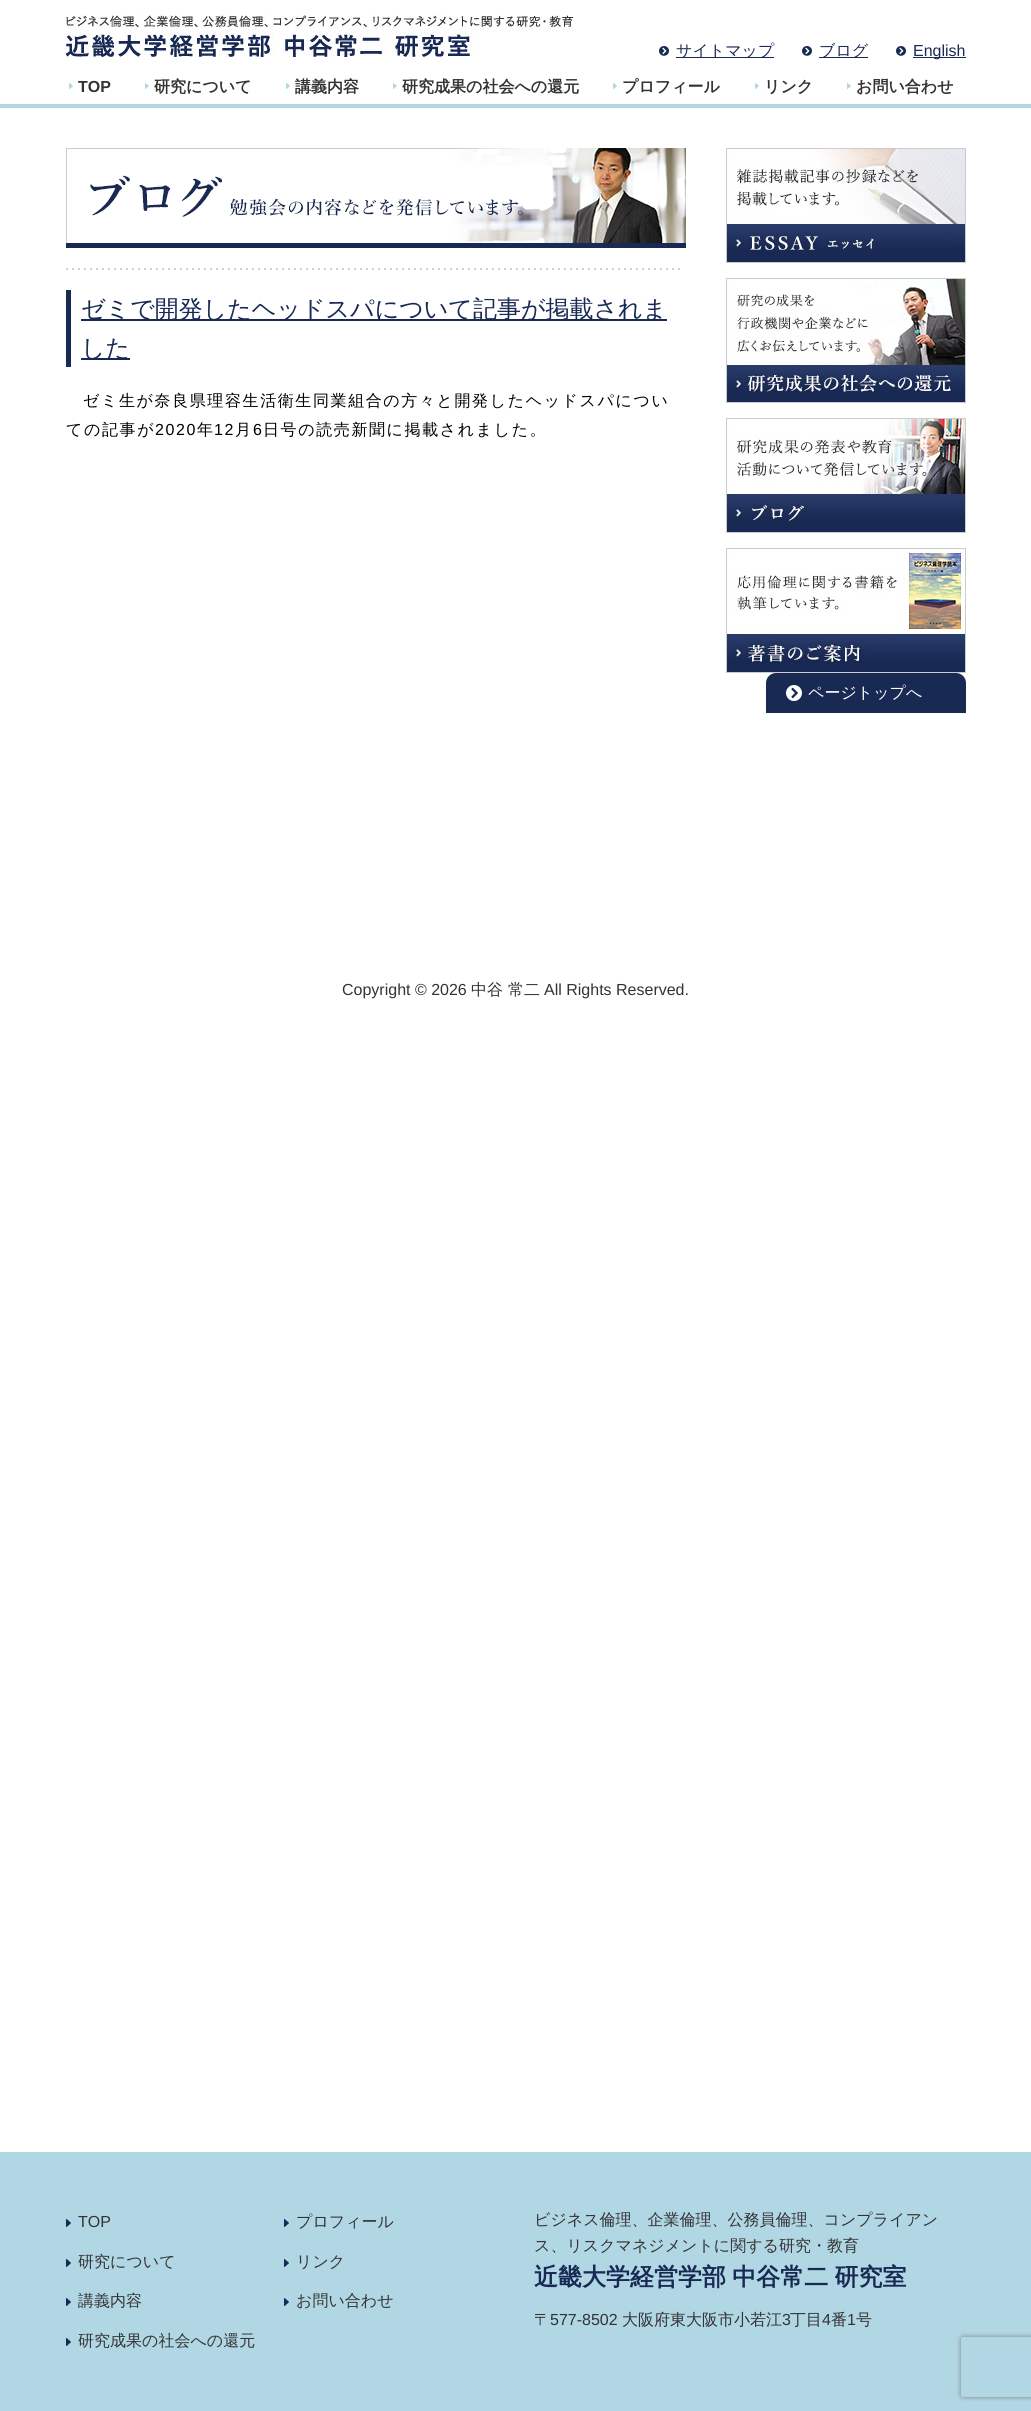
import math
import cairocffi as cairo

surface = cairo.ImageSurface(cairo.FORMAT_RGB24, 1031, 2411)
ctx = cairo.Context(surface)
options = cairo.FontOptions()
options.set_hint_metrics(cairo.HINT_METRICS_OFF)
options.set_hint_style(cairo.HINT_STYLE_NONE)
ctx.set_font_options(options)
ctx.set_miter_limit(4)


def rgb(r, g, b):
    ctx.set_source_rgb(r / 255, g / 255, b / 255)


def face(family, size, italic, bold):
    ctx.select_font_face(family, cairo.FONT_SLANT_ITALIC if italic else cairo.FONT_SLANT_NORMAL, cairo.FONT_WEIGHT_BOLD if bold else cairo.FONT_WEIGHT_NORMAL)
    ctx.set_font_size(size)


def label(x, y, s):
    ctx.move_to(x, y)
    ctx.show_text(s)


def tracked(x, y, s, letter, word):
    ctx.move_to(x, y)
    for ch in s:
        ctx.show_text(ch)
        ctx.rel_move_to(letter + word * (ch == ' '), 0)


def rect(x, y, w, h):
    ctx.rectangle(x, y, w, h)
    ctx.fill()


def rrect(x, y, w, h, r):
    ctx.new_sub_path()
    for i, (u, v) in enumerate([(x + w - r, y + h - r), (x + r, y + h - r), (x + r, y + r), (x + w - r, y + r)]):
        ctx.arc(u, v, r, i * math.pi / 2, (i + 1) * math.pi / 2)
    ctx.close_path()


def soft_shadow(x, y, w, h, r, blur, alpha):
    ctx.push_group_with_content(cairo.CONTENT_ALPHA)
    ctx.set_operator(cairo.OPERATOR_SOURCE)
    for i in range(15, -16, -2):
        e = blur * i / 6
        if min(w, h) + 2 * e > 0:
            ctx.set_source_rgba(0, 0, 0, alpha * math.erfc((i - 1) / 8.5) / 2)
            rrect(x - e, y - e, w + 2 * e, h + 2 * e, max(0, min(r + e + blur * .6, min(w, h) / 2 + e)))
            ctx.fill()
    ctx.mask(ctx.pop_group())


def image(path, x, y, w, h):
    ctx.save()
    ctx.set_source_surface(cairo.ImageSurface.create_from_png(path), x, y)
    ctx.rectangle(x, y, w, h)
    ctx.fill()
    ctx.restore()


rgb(255, 255, 255)
ctx.paint()
image('image0.png', 66, 15, 507, 42)
image('image1.png', 659, 46, 10, 10)
rgb(24, 41, 84)
rect(676, 57, 98, 1)
face('WenQuanYi Zen Hei Medium', 16, 0, 0)
label(676, 56, 'サイトマップ')
image('image1.png', 802, 46, 10, 10)
rect(819, 57, 49, 1)
label(819, 56, 'ブログ')
image('image1.png', 896, 46, 10, 10)
rect(913, 57, 53, 1)
face('Liberation Sans', 16, 0, 0)
label(913, 56, 'English')
rgb(177, 215, 228)
rect(0, 104, 1031, 4)
image('image2.png', 69, 83, 4, 6)
face('Liberation Sans', 16, 0, 1)
rgb(51, 51, 51)
label(78, 92, 'TOP')
image('image2.png', 145, 83, 4, 6)
face('WenQuanYi Zen Hei', 16, 0, 1)
label(154, 92, '研究について')
image('image2.png', 286, 83, 4, 6)
label(295, 92, '講義内容')
image('image2.png', 393, 83, 4, 6)
label(402, 92, '研究成果の社会への還元')
image('image2.png', 613, 83, 4, 6)
label(622, 92, 'プロフィール')
image('image2.png', 755, 83, 4, 6)
label(764, 92, 'リンク')
image('image2.png', 847, 83, 4, 6)
label(856, 92, 'お問い合わせ')
image('image3.png', 66, 148, 620, 100)
image('image4.png', 66, 268, 614, 2)
rgb(24, 41, 84)
rect(66, 290, 5, 77)
rect(81, 319, 586, 2)
face('WenQuanYi Zen Hei Medium', 24, 0, 0)
label(81, 317, 'ゼミで開発したヘッドスパについて記事が掲載されま')
rect(81, 358, 49, 2)
label(81, 356, 'した')
face('WenQuanYi Zen Hei Medium', 16, 0, 0)
rgb(0, 0, 0)
tracked(83, 406, 'ゼミ生が奈良県理容生活衛生同業組合の方々と開発したヘッドスパについ', 1.6, 0)
tracked(66, 435, 'ての記事が', 1.6, 0)
face('Liberation Sans', 16, 0, 0)
tracked(155, 435, '2020', 1.6, 0)
face('WenQuanYi Zen Hei Medium', 16, 0, 0)
tracked(197, 435, '年', 1.6, 0)
face('Liberation Sans', 16, 0, 0)
tracked(214, 435, '12', 1.6, 0)
face('WenQuanYi Zen Hei Medium', 16, 0, 0)
tracked(235, 435, '月', 1.6, 0)
face('Liberation Sans', 16, 0, 0)
tracked(253, 435, '6', 1.6, 0)
face('WenQuanYi Zen Hei Medium', 16, 0, 0)
tracked(263, 435, '日号の読売新聞に掲載されました。', 1.6, 0)
image('image5.png', 726, 148, 240, 115)
image('image6.png', 726, 278, 240, 125)
image('image7.png', 726, 418, 240, 115)
image('image8.png', 726, 548, 240, 125)
rgb(24, 41, 84)
ctx.new_path()
ctx.move_to(776, 673)
ctx.line_to(956, 673)
ctx.curve_to(961.5, 673, 966, 677.5, 966, 683)
ctx.line_to(966, 713)
ctx.line_to(766, 713)
ctx.line_to(766, 683)
ctx.curve_to(766, 677.5, 770.5, 673, 776, 673)
ctx.close_path()
ctx.fill()
image('image9.png', 786, 685, 16, 16)
rgb(255, 255, 255)
label(808, 698, 'ページトップへ')
face('Liberation Sans', 16, 0, 0)
rgb(51, 51, 51)
label(342, 995, 'Copyright © 2026')
face('WenQuanYi Zen Hei Medium', 16, 0, 0)
label(471, 995, '中谷')
label(508, 995, '常二')
face('Liberation Sans', 16, 0, 0)
label(544, 995, 'All Rights Reserved.')
rgb(177, 215, 228)
rect(0, 2152, 1031, 259)
image('image10.png', 66, 2219, 5, 8)
rgb(51, 51, 51)
label(78, 2227, 'TOP')
image('image10.png', 284, 2219, 5, 8)
face('WenQuanYi Zen Hei Medium', 16, 0, 0)
label(296, 2227, 'プロフィール')
image('image10.png', 66, 2259, 5, 8)
label(78, 2267, '研究について')
image('image10.png', 284, 2259, 5, 8)
label(296, 2267, 'リンク')
image('image10.png', 66, 2298, 5, 8)
label(78, 2306, '講義内容')
image('image10.png', 284, 2298, 5, 8)
label(296, 2306, 'お問い合わせ')
image('image10.png', 66, 2338, 5, 8)
label(78, 2346, '研究成果の社会への還元')
label(534, 2225, 'ビジネス倫理、企業倫理、公務員倫理、コンプライアン')
label(534, 2251, 'ス、リスクマネジメントに関する研究・教育')
face('WenQuanYi Zen Hei', 24, 0, 1)
rgb(24, 41, 84)
tracked(534, 2285, '近畿大学経営学部 中谷常二 研究室', 0, -1)
face('WenQuanYi Zen Hei Medium', 16, 0, 0)
rgb(51, 51, 51)
label(534, 2325, '〒')
face('Liberation Sans', 16, 0, 0)
label(550, 2325, '577-8502')
face('WenQuanYi Zen Hei Medium', 16, 0, 0)
label(622, 2325, '大阪府東大阪市小若江')
face('Liberation Sans', 16, 0, 0)
label(782, 2325, '3')
face('WenQuanYi Zen Hei Medium', 16, 0, 0)
label(790, 2325, '丁目')
face('Liberation Sans', 16, 0, 0)
label(822, 2325, '4')
face('WenQuanYi Zen Hei Medium', 16, 0, 0)
label(831, 2325, '番')
face('Liberation Sans', 16, 0, 0)
label(847, 2325, '1')
face('WenQuanYi Zen Hei Medium', 16, 0, 0)
label(856, 2325, '号')
ctx.save()
ctx.set_fill_rule(cairo.FILL_RULE_EVEN_ODD)
ctx.new_path()
ctx.move_to(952, 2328)
ctx.line_to(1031, 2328)
ctx.line_to(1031, 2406)
ctx.line_to(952, 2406)
ctx.close_path()
ctx.move_to(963, 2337)
ctx.line_to(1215, 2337)
ctx.curve_to(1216, 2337, 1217, 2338, 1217, 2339)
ctx.line_to(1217, 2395)
ctx.curve_to(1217, 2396, 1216, 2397, 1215, 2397)
ctx.line_to(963, 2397)
ctx.curve_to(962, 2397, 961, 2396, 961, 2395)
ctx.line_to(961, 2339)
ctx.curve_to(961, 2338, 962, 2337, 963, 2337)
ctx.close_path()
ctx.clip()
rgb(128, 128, 128)
soft_shadow(961, 2337, 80, 60, 2, 2.5, 1)
ctx.restore()
surface.write_to_png('render.png')
